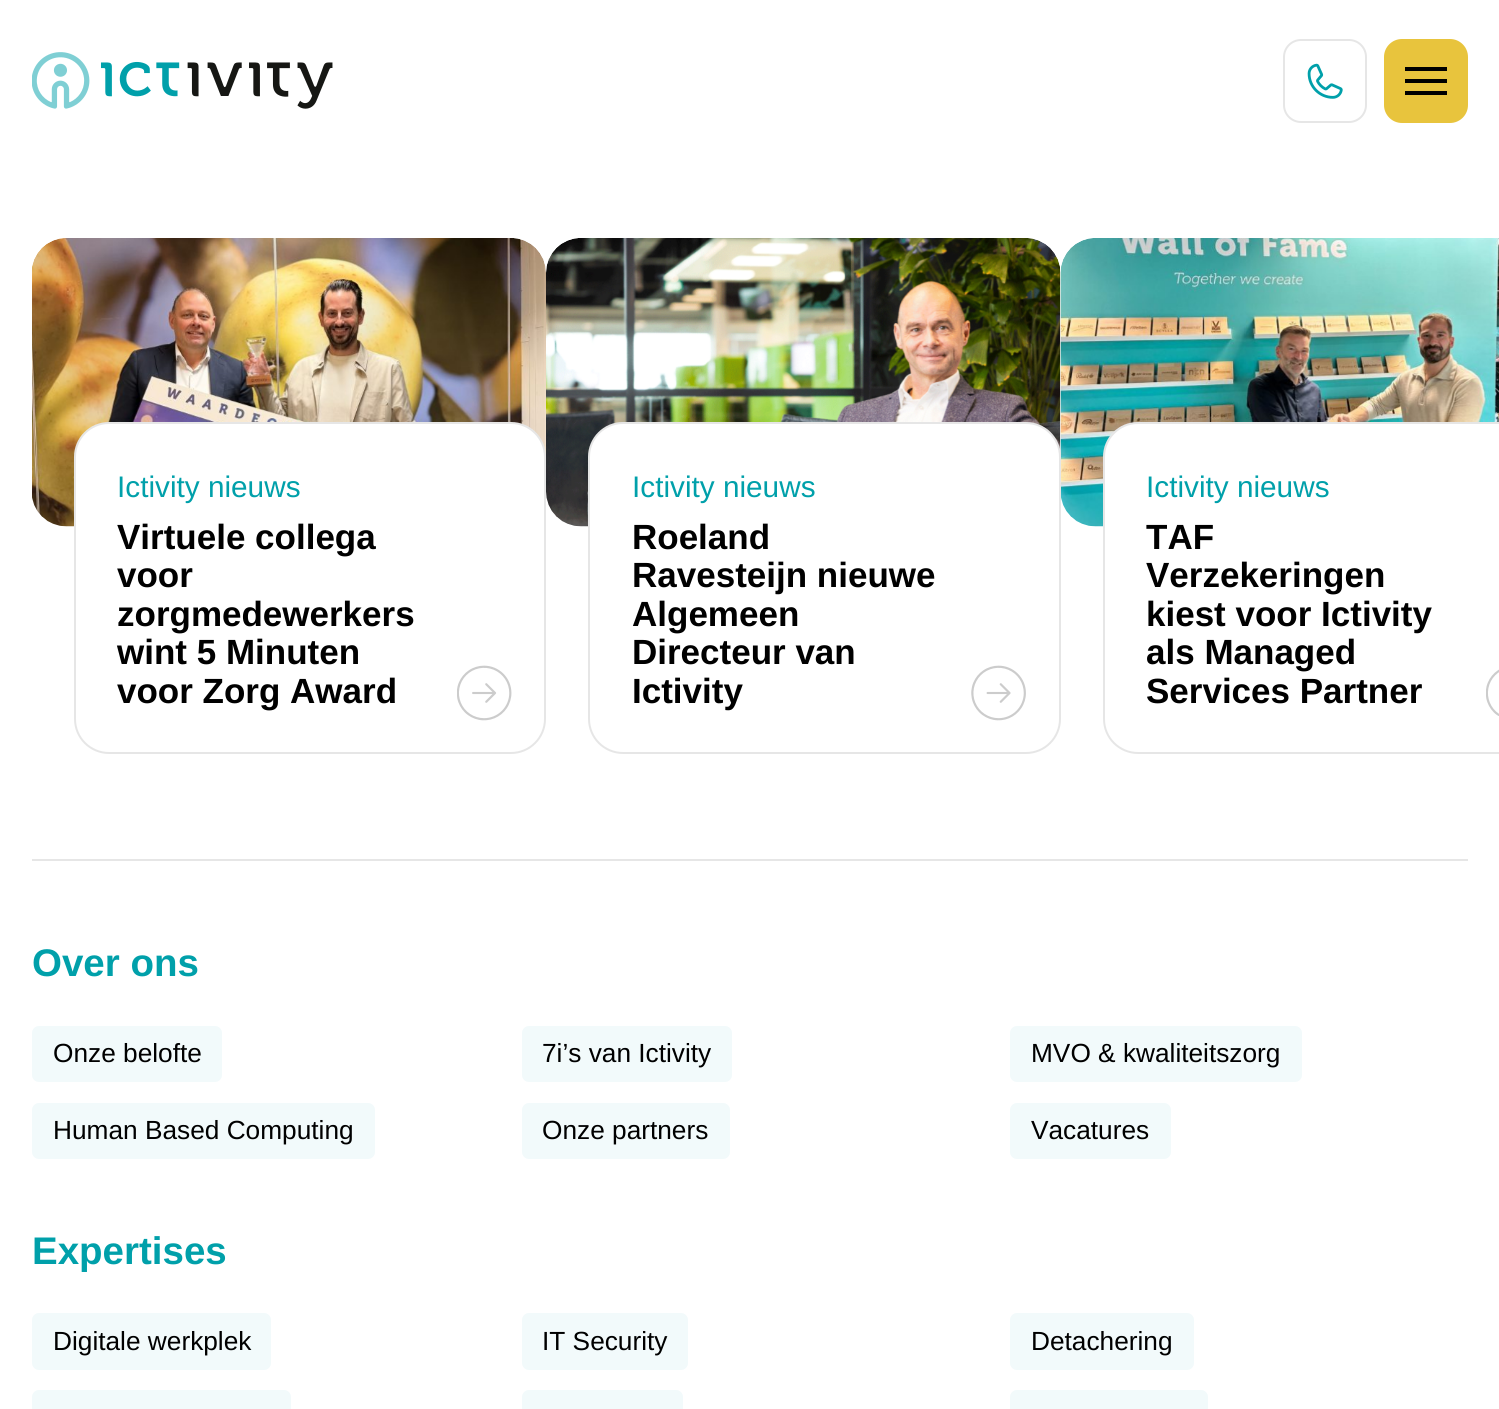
import math
import cairocffi as cairo

surface = cairo.ImageSurface(cairo.FORMAT_RGB24, 1499, 1409)
ctx = cairo.Context(surface)
options = cairo.FontOptions()
options.set_hint_metrics(cairo.HINT_METRICS_OFF)
options.set_hint_style(cairo.HINT_STYLE_NONE)
ctx.set_font_options(options)
ctx.set_miter_limit(4)


def rgb(r, g, b):
    ctx.set_source_rgb(r / 255, g / 255, b / 255)


def face(family, size, italic, bold):
    ctx.select_font_face(family, cairo.FONT_SLANT_ITALIC if italic else cairo.FONT_SLANT_NORMAL, cairo.FONT_WEIGHT_BOLD if bold else cairo.FONT_WEIGHT_NORMAL)
    ctx.set_font_size(size)


def label(x, y, s):
    ctx.move_to(x, y)
    ctx.show_text(s)


def rect(x, y, w, h):
    ctx.rectangle(x, y, w, h)
    ctx.fill()


def rrect(x, y, w, h, r):
    ctx.new_sub_path()
    for i, (u, v) in enumerate([(x + w - r, y + h - r), (x + r, y + h - r), (x + r, y + r), (x + w - r, y + r)]):
        ctx.arc(u, v, r, i * math.pi / 2, (i + 1) * math.pi / 2)
    ctx.close_path()


def image(path, x, y, w, h):
    ctx.save()
    ctx.set_source_surface(cairo.ImageSurface.create_from_png(path), x, y)
    ctx.rectangle(x, y, w, h)
    ctx.fill()
    ctx.restore()


rgb(255, 255, 255)
ctx.paint()
image('image0.png', 32, 52, 301, 57)
rrect(1284, 40, 82, 82, 17)
rgb(230, 230, 230)
ctx.stroke()
image('image1.png', 1307, 63, 36, 36)
rgb(232, 196, 61)
rrect(1384, 39, 84, 84, 18)
ctx.fill()
rgb(0, 0, 0)
rect(1405, 79, 42, 4)
rect(1405, 67, 42, 4)
rect(1405, 91, 42, 4)
image('image2.png', 32, 238, 514, 289)
rgb(255, 255, 255)
rrect(74, 422, 472, 332, 35)
ctx.fill()
rrect(75, 423, 470, 330, 34)
ctx.set_source_rgba(0, 0, 0, 0.1)
ctx.stroke()
face('Liberation Sans', 29.75, 0, 0)
rgb(0, 160, 170)
label(117, 497, 'Ictivity nieuws')
face('Liberation Sans', 35, 0, 1)
rgb(0, 0, 0)
label(117, 549, 'Virtuele collega')
label(117, 587, 'voor')
label(117, 626, 'zorgmedewerkers')
label(117, 664, 'wint 5 Minuten')
label(117, 703, 'voor Zorg Award')
image('image3.png', 457, 665, 55, 56)
image('image4.png', 546, 238, 515, 289)
image('image6.png', 1060, 238, 439, 289)
rgb(255, 255, 255)
rrect(588, 422, 473, 332, 35)
ctx.fill()
rrect(589, 423, 471, 330, 34)
ctx.set_source_rgba(0, 0, 0, 0.1)
ctx.stroke()
face('Liberation Sans', 29.75, 0, 0)
rgb(0, 160, 170)
label(632, 497, 'Ictivity nieuws')
face('Liberation Sans', 35, 0, 1)
rgb(0, 0, 0)
label(632, 549, 'Roeland')
label(632, 587, 'Ravesteijn nieuwe')
label(632, 626, 'Algemeen')
label(632, 664, 'Directeur van')
label(632, 703, 'Ictivity')
image('image5.png', 971, 665, 55, 56)
rgb(255, 255, 255)
ctx.new_path()
ctx.move_to(1138, 422)
ctx.line_to(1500, 422)
ctx.line_to(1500, 754)
ctx.line_to(1138, 754)
ctx.curve_to(1118.5, 754, 1103, 738.5, 1103, 719)
ctx.line_to(1103, 457)
ctx.curve_to(1103, 437.5, 1118.5, 422, 1138, 422)
ctx.close_path()
ctx.fill()
rrect(1104, 423, 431, 330, 34)
ctx.set_source_rgba(0, 0, 0, 0.1)
ctx.stroke()
face('Liberation Sans', 29.75, 0, 0)
rgb(0, 160, 170)
label(1146, 497, 'Ictivity nieuws')
face('Liberation Sans', 35, 0, 1)
rgb(0, 0, 0)
label(1146, 549, 'TAF')
label(1146, 587, 'Verzekeringen')
label(1146, 626, 'kiest voor Ictivity')
label(1146, 664, 'als Managed')
label(1146, 703, 'Services Partner')
image('image7.png', 1486, 669, 13, 47)
rgb(230, 230, 230)
rect(32, 859, 1436, 2)
face('Liberation Sans', 38.5, 0, 1)
rgb(0, 160, 170)
label(32, 976, 'Over ons')
rgb(242, 250, 251)
rrect(32, 1026, 190, 56, 7)
ctx.fill()
face('Liberation Sans', 26.25, 0, 0)
rgb(0, 0, 0)
label(53, 1062, 'Onze belofte')
rgb(242, 250, 251)
rrect(522, 1026, 210, 56, 7)
ctx.fill()
rgb(0, 0, 0)
label(542, 1062, '7i’s van Ictivity')
rgb(242, 250, 251)
rrect(1010, 1026, 292, 56, 7)
ctx.fill()
rgb(0, 0, 0)
label(1031, 1062, 'MVO & kwaliteitszorg')
rgb(242, 250, 251)
rrect(32, 1103, 343, 56, 7)
ctx.fill()
rgb(0, 0, 0)
label(53, 1139, 'Human Based Computing')
rgb(242, 250, 251)
rrect(522, 1103, 208, 56, 7)
ctx.fill()
rgb(0, 0, 0)
label(542, 1139, 'Onze partners')
rgb(242, 250, 251)
rrect(1010, 1103, 161, 56, 7)
ctx.fill()
rgb(0, 0, 0)
label(1031, 1139, 'Vacatures')
face('Liberation Sans', 38.5, 0, 1)
rgb(0, 160, 170)
label(32, 1264, 'Expertises')
rgb(242, 250, 251)
rrect(32, 1313, 239, 57, 7)
ctx.fill()
face('Liberation Sans', 26.25, 0, 0)
rgb(0, 0, 0)
label(53, 1350, 'Digitale werkplek')
rgb(242, 250, 251)
rrect(522, 1313, 166, 57, 7)
ctx.fill()
rgb(0, 0, 0)
label(542, 1350, 'IT Security')
rgb(242, 250, 251)
rrect(1010, 1313, 184, 57, 7)
ctx.fill()
rgb(0, 0, 0)
label(1031, 1350, 'Detachering')
rgb(242, 250, 251)
rrect(32, 1390, 259, 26, 7)
ctx.fill()
rrect(522, 1390, 161, 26, 7)
ctx.fill()
rrect(1010, 1390, 198, 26, 7)
ctx.fill()
surface.write_to_png('render.png')
